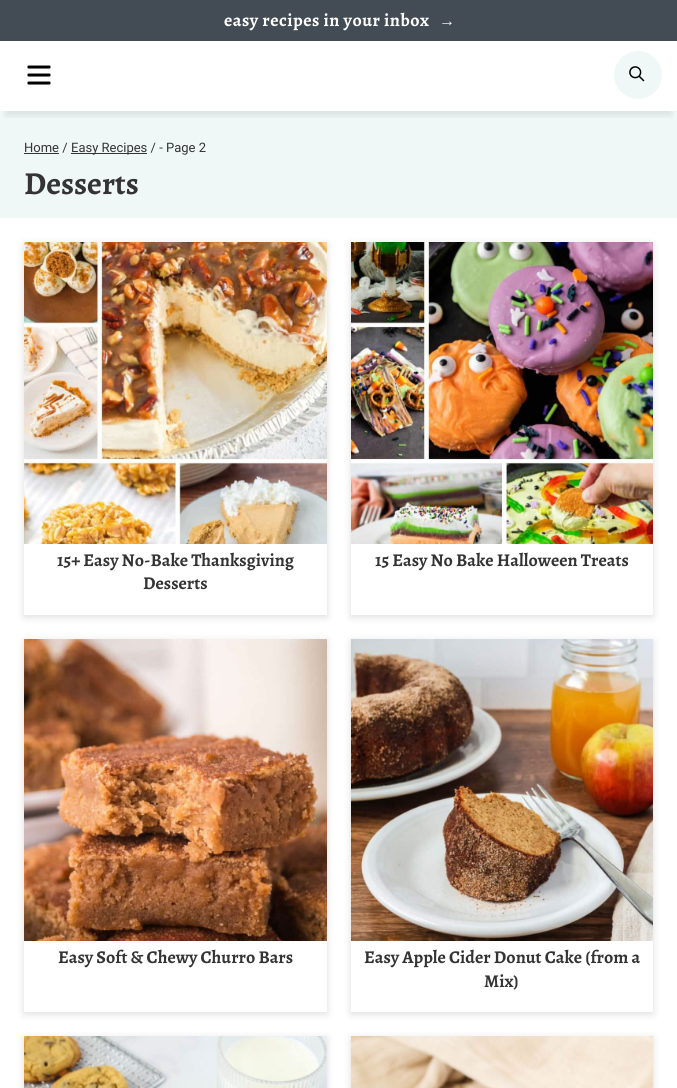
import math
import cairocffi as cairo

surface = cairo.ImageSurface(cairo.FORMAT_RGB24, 677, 1088)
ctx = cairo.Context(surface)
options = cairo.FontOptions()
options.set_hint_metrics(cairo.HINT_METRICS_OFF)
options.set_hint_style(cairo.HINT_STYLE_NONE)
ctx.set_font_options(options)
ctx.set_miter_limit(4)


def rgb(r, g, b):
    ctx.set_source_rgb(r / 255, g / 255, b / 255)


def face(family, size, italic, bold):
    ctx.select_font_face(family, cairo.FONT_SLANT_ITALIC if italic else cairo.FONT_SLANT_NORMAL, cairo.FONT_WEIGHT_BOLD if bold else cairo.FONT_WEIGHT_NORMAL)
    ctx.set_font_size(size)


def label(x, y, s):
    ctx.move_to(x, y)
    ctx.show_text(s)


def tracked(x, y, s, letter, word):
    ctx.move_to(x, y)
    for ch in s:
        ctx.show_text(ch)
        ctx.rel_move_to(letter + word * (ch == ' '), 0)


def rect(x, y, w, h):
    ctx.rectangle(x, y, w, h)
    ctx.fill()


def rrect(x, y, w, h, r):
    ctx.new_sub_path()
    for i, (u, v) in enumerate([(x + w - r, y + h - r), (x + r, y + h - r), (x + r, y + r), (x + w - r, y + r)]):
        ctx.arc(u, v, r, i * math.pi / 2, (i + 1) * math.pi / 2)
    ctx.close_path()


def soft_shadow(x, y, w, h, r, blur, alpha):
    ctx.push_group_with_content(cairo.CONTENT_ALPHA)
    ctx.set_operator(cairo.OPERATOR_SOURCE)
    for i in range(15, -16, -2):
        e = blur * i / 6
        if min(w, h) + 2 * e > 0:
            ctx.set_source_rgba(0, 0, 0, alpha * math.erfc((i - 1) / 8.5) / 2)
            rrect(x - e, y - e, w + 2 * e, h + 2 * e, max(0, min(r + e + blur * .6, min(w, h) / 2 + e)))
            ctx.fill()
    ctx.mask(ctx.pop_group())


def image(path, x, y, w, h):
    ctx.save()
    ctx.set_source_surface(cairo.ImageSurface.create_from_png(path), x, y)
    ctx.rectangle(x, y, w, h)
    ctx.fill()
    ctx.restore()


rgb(255, 255, 255)
ctx.paint()
rgb(67, 75, 84)
rect(0, 0, 677, 41)
face('Alegreya', 18, 0, 1)
rgb(255, 255, 255)
tracked(224, 26, 'easy recipes in your inbox', 0.5, 0)
face('Liberation Serif', 16, 0, 0)
tracked(439, 26, '→', 0.5, 0)
rgb(240, 248, 247)
rect(0, 111, 677, 107)
ctx.save()
ctx.rectangle(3, 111, 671, 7)
ctx.clip()
rgb(0, 0, 0)
soft_shadow(5, 56, 667, 60, 0, 2.5, 0.08)
ctx.restore()
image('image0.png', 27, 65, 24, 20)
ctx.arc(638, 75, 24, 0, 2 * math.pi)
ctx.fill()
image('image1.png', 629, 66, 16, 16)
face('Roboto', 13, 0, 0)
rgb(52, 52, 52)
label(24, 152, 'Home /')
rect(24, 153, 35, 1)
rect(71, 153, 76, 1)
label(71, 152, 'Easy Recipes / - Page 2')
face('Alegreya', 32, 0, 1)
label(24, 194, 'Desserts')
ctx.save()
ctx.set_fill_rule(cairo.FILL_RULE_EVEN_ODD)
ctx.new_path()
ctx.move_to(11, 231)
ctx.line_to(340, 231)
ctx.line_to(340, 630)
ctx.line_to(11, 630)
ctx.close_path()
ctx.move_to(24, 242)
ctx.line_to(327, 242)
ctx.line_to(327, 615)
ctx.line_to(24, 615)
ctx.close_path()
ctx.clip()
rgb(35, 35, 35)
soft_shadow(24, 244, 303, 373, 0, 4, 0.15)
ctx.restore()
image('image2.png', 24, 242, 303, 302)
face('Alegreya', 18, 0, 1)
label(57, 566, '15+ Easy No-Bake Thanksgiving')
label(143, 589, 'Desserts')
ctx.save()
ctx.set_fill_rule(cairo.FILL_RULE_EVEN_ODD)
ctx.new_path()
ctx.move_to(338, 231)
ctx.line_to(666, 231)
ctx.line_to(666, 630)
ctx.line_to(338, 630)
ctx.close_path()
ctx.move_to(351, 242)
ctx.line_to(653, 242)
ctx.line_to(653, 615)
ctx.line_to(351, 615)
ctx.close_path()
ctx.clip()
rgb(35, 35, 35)
soft_shadow(351, 244, 302, 373, 0, 4, 0.15)
ctx.restore()
image('image3.png', 351, 242, 302, 302)
label(375, 566, '15 Easy No Bake Halloween Treats')
ctx.save()
ctx.set_fill_rule(cairo.FILL_RULE_EVEN_ODD)
ctx.new_path()
ctx.move_to(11, 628)
ctx.line_to(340, 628)
ctx.line_to(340, 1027)
ctx.line_to(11, 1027)
ctx.close_path()
ctx.move_to(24, 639)
ctx.line_to(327, 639)
ctx.line_to(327, 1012)
ctx.line_to(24, 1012)
ctx.close_path()
ctx.clip()
rgb(35, 35, 35)
soft_shadow(24, 641, 303, 373, 0, 4, 0.15)
ctx.restore()
image('image4.png', 24, 639, 303, 302)
label(58, 963, 'Easy Soft & Chewy Churro Bars')
ctx.save()
ctx.set_fill_rule(cairo.FILL_RULE_EVEN_ODD)
ctx.new_path()
ctx.move_to(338, 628)
ctx.line_to(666, 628)
ctx.line_to(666, 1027)
ctx.line_to(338, 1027)
ctx.close_path()
ctx.move_to(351, 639)
ctx.line_to(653, 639)
ctx.line_to(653, 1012)
ctx.line_to(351, 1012)
ctx.close_path()
ctx.clip()
rgb(35, 35, 35)
soft_shadow(351, 641, 302, 373, 0, 4, 0.15)
ctx.restore()
image('image5.png', 351, 639, 302, 302)
label(364, 963, 'Easy Apple Cider Donut Cake (from a')
label(484, 987, 'Mix)')
rgb(35, 35, 35)
soft_shadow(24, 1038, 303, 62, 0, 4, 0.15)
image('image6.png', 24, 1036, 303, 52)
soft_shadow(351, 1038, 302, 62, 0, 4, 0.15)
image('image7.png', 351, 1036, 302, 52)
surface.write_to_png('render.png')
